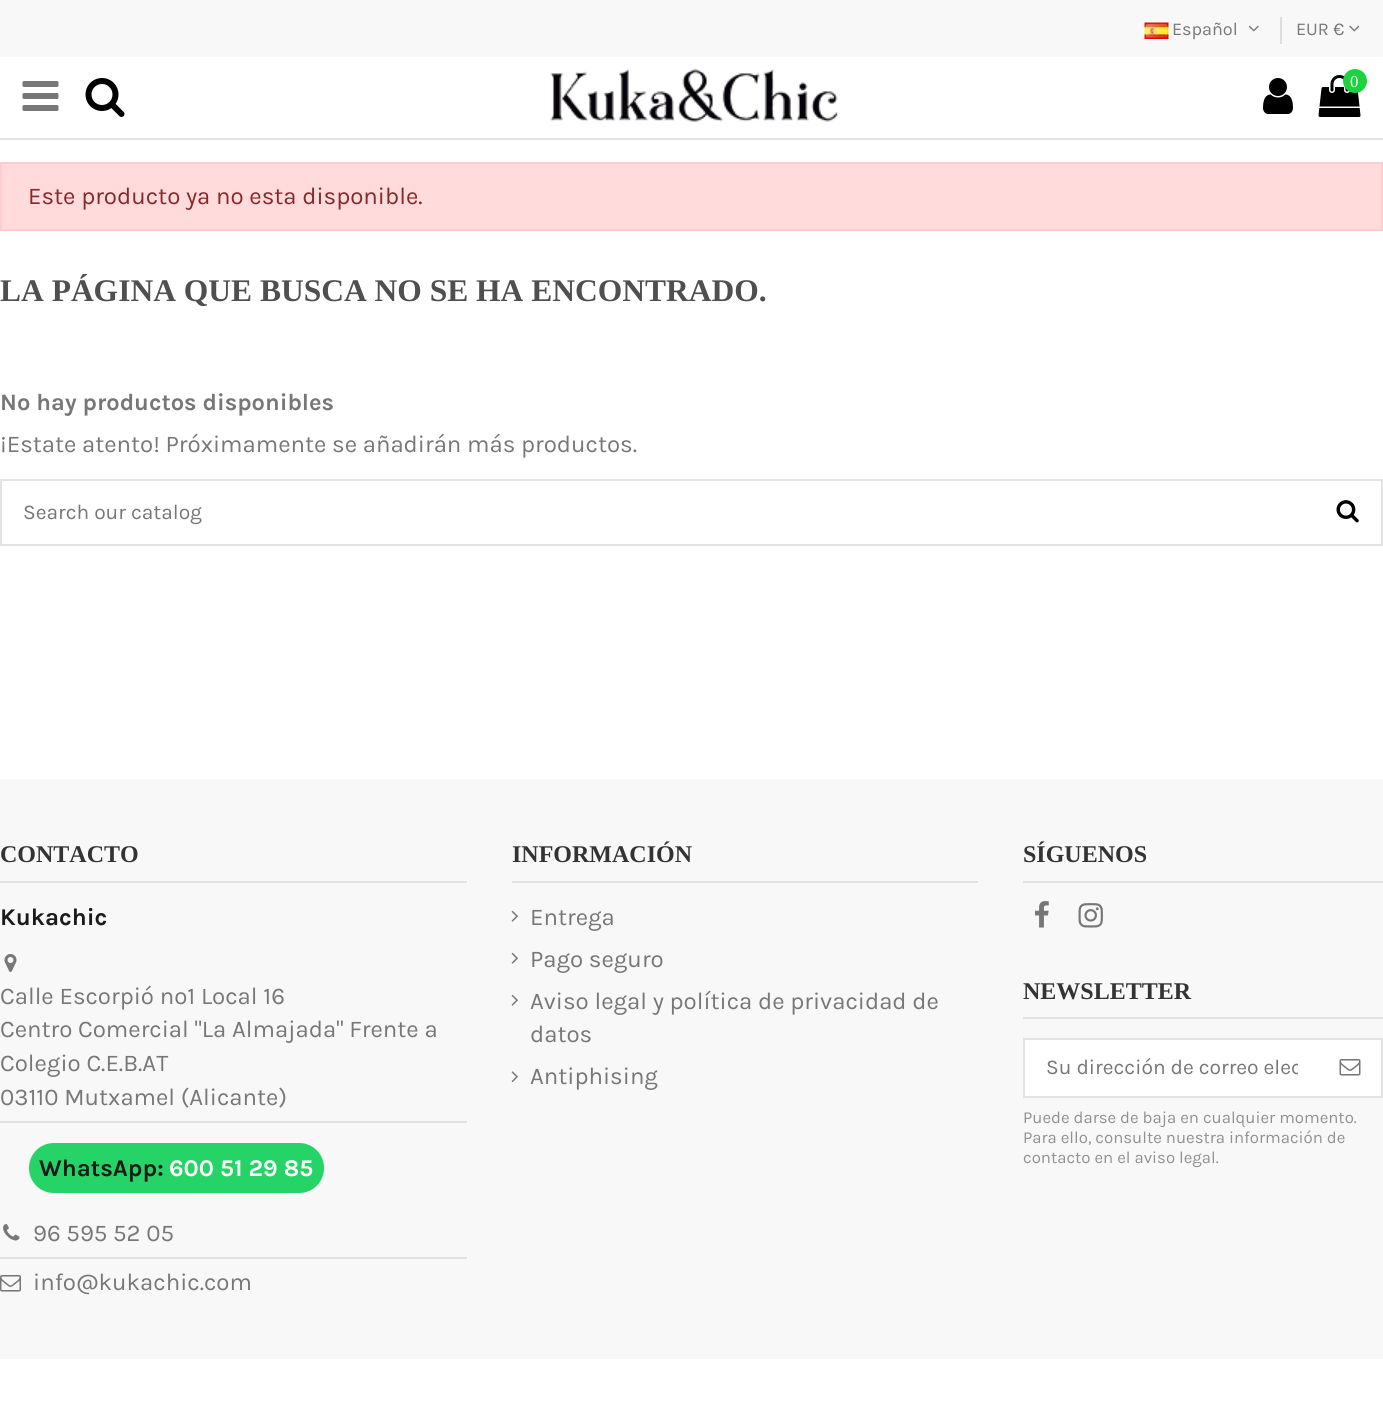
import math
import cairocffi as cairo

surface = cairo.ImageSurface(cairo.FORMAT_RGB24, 1383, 1425)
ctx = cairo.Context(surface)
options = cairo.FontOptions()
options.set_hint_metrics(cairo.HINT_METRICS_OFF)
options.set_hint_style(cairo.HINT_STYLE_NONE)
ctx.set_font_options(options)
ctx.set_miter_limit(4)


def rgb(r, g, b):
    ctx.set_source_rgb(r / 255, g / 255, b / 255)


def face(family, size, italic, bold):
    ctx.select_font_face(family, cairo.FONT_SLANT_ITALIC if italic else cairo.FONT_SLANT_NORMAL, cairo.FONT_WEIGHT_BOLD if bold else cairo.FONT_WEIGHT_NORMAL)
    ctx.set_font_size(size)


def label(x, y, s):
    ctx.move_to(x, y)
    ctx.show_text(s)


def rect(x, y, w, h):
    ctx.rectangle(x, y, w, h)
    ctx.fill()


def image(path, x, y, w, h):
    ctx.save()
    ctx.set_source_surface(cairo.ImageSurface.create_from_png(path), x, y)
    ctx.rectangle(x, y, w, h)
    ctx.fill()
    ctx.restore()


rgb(255, 255, 255)
ctx.paint()
rgb(248, 248, 248)
rect(0, 0, 1383, 57)
image('image0.png', 1144, 22, 25, 17)
face('Karla', 18, 0, 0)
rgb(119, 119, 119)
label(1172, 35, 'Español')
image('image1.png', 1248, 25, 11, 7)
rgb(222, 222, 222)
rect(1280, 17, 2, 27)
rgb(119, 119, 119)
label(1296, 35, 'EUR €')
image('image2.png', 1349, 25, 11, 7)
rgb(227, 227, 227)
rect(0, 138, 1383, 2)
image('image3.png', 22, 81, 37, 30)
image('image4.png', 85, 78, 40, 39)
image('image5.png', 550, 68, 288, 54)
image('image6.png', 1263, 78, 30, 36)
image('image7.png', 1318, 75, 43, 42)
rgb(27, 211, 63)
ctx.arc(1355, 81, 12, 0, 2 * math.pi)
ctx.fill()
face('Liberation Serif', 16.75, 0, 0)
rgb(255, 255, 255)
label(1350, 87, '0')
rgb(255, 219, 219)
ctx.rectangle(1, 163, 1381, 67)
ctx.fill_preserve()
rgb(255, 205, 205)
ctx.stroke()
face('Karla', 24, 0, 0)
rgb(133, 40, 40)
label(28, 204, 'Este producto ya no esta disponible.')
face('Liberation Serif', 31.5, 0, 1)
rgb(79, 79, 79)
label(0, 301, 'LA PÁGINA QUE BUSCA NO SE HA ENCONTRADO.')
face('Karla', 23.6, 0, 1)
rgb(119, 119, 119)
label(0, 410, 'No hay productos disponibles')
face('Karla', 24, 0, 0)
label(0, 452, '¡Estate atento! Próximamente se añadirán más productos.')
ctx.rectangle(1, 480, 1381, 65)
rgb(227, 227, 227)
ctx.stroke()
face('Karla', 21, 0, 0)
rgb(119, 119, 119)
label(23, 519, 'Search our catalog')
image('image8.png', 1336, 500, 23, 23)
rgb(248, 248, 248)
rect(0, 779, 1383, 580)
rgb(227, 227, 227)
rect(0, 881, 467, 2)
face('Liberation Serif', 24, 0, 1)
rgb(51, 51, 51)
label(0, 862, 'CONTACTO')
face('Karla', 24, 0, 1)
rgb(27, 27, 27)
label(0, 925, 'Kukachic')
image('image9.png', 4, 954, 13, 18)
face('Karla', 24, 0, 0)
rgb(119, 119, 119)
label(0, 1004, 'Calle Escorpió nº1 Local 16')
label(0, 1037, 'Centro Comercial "La Almajada" Frente a')
label(0, 1071, 'Colegio C.E.B.AT')
label(0, 1105, '03110 Mutxamel (Alicante)')
rgb(226, 226, 226)
rect(0, 1121, 467, 2)
rgb(37, 211, 102)
ctx.new_path()
ctx.move_to(54, 1143)
ctx.line_to(164, 1143)
ctx.line_to(164, 1193)
ctx.line_to(54, 1193)
ctx.curve_to(40, 1193, 29, 1182, 29, 1168)
ctx.curve_to(29, 1154, 40, 1143, 54, 1143)
ctx.close_path()
ctx.fill()
face('Karla', 24, 0, 1)
rgb(27, 27, 27)
label(39, 1176, 'WhatsApp:')
rgb(37, 211, 102)
ctx.new_path()
ctx.move_to(170, 1143)
ctx.line_to(299, 1143)
ctx.curve_to(313, 1143, 324, 1154, 324, 1168)
ctx.curve_to(324, 1182, 313, 1193, 299, 1193)
ctx.line_to(170, 1193)
ctx.close_path()
ctx.fill()
rgb(255, 255, 255)
label(169, 1176, '600 51 29 85')
rgb(37, 211, 102)
rect(164, 1143, 6, 50)
image('image10.png', 3, 1224, 17, 17)
face('Karla', 24, 0, 0)
rgb(119, 119, 119)
label(33, 1241, '96 595 52 05')
rgb(226, 226, 226)
rect(0, 1257, 467, 2)
image('image11.png', 0, 1275, 21, 17)
rgb(119, 119, 119)
label(33, 1290, 'info@kukachic.com')
rgb(227, 227, 227)
rect(512, 881, 466, 2)
face('Liberation Serif', 24, 0, 1)
rgb(51, 51, 51)
label(512, 862, 'INFORMACIÓN')
image('image12.png', 511, 910, 7, 12)
face('Karla', 24, 0, 0)
rgb(119, 119, 119)
label(530, 925, 'Entrega')
image('image12.png', 511, 952, 7, 12)
label(530, 967, 'Pago seguro')
image('image12.png', 511, 994, 7, 12)
label(530, 1009, 'Aviso legal y política de privacidad de')
label(530, 1042, 'datos')
image('image13.png', 511, 1071, 7, 12)
label(530, 1084, 'Antiphising')
rgb(227, 227, 227)
rect(1023, 881, 360, 2)
face('Liberation Serif', 24, 0, 1)
rgb(51, 51, 51)
label(1023, 862, 'SÍGUENOS')
image('image14.png', 1035, 901, 14, 27)
image('image15.png', 1078, 903, 25, 25)
rgb(227, 227, 227)
rect(1023, 1017, 360, 2)
rgb(51, 51, 51)
label(1023, 999, 'NEWSLETTER')
rgb(255, 255, 255)
ctx.rectangle(1024, 1039, 358, 58)
ctx.fill_preserve()
rgb(227, 227, 227)
ctx.stroke()
ctx.save()
ctx.rectangle(1046, 1055, 252, 25)
ctx.clip()
face('Karla', 21, 0, 0)
rgb(119, 119, 119)
label(1046, 1074, 'Su dirección de correo elec')
ctx.restore()
image('image16.png', 1339, 1059, 22, 17)
face('Karla', 16.75, 0, 0)
rgb(145, 145, 145)
label(1023, 1123, 'Puede darse de baja en cualquier momento.')
label(1023, 1143, 'Para ello, consulte nuestra información de')
label(1023, 1163, 'contacto en el aviso legal.')
surface.write_to_png('render.png')
